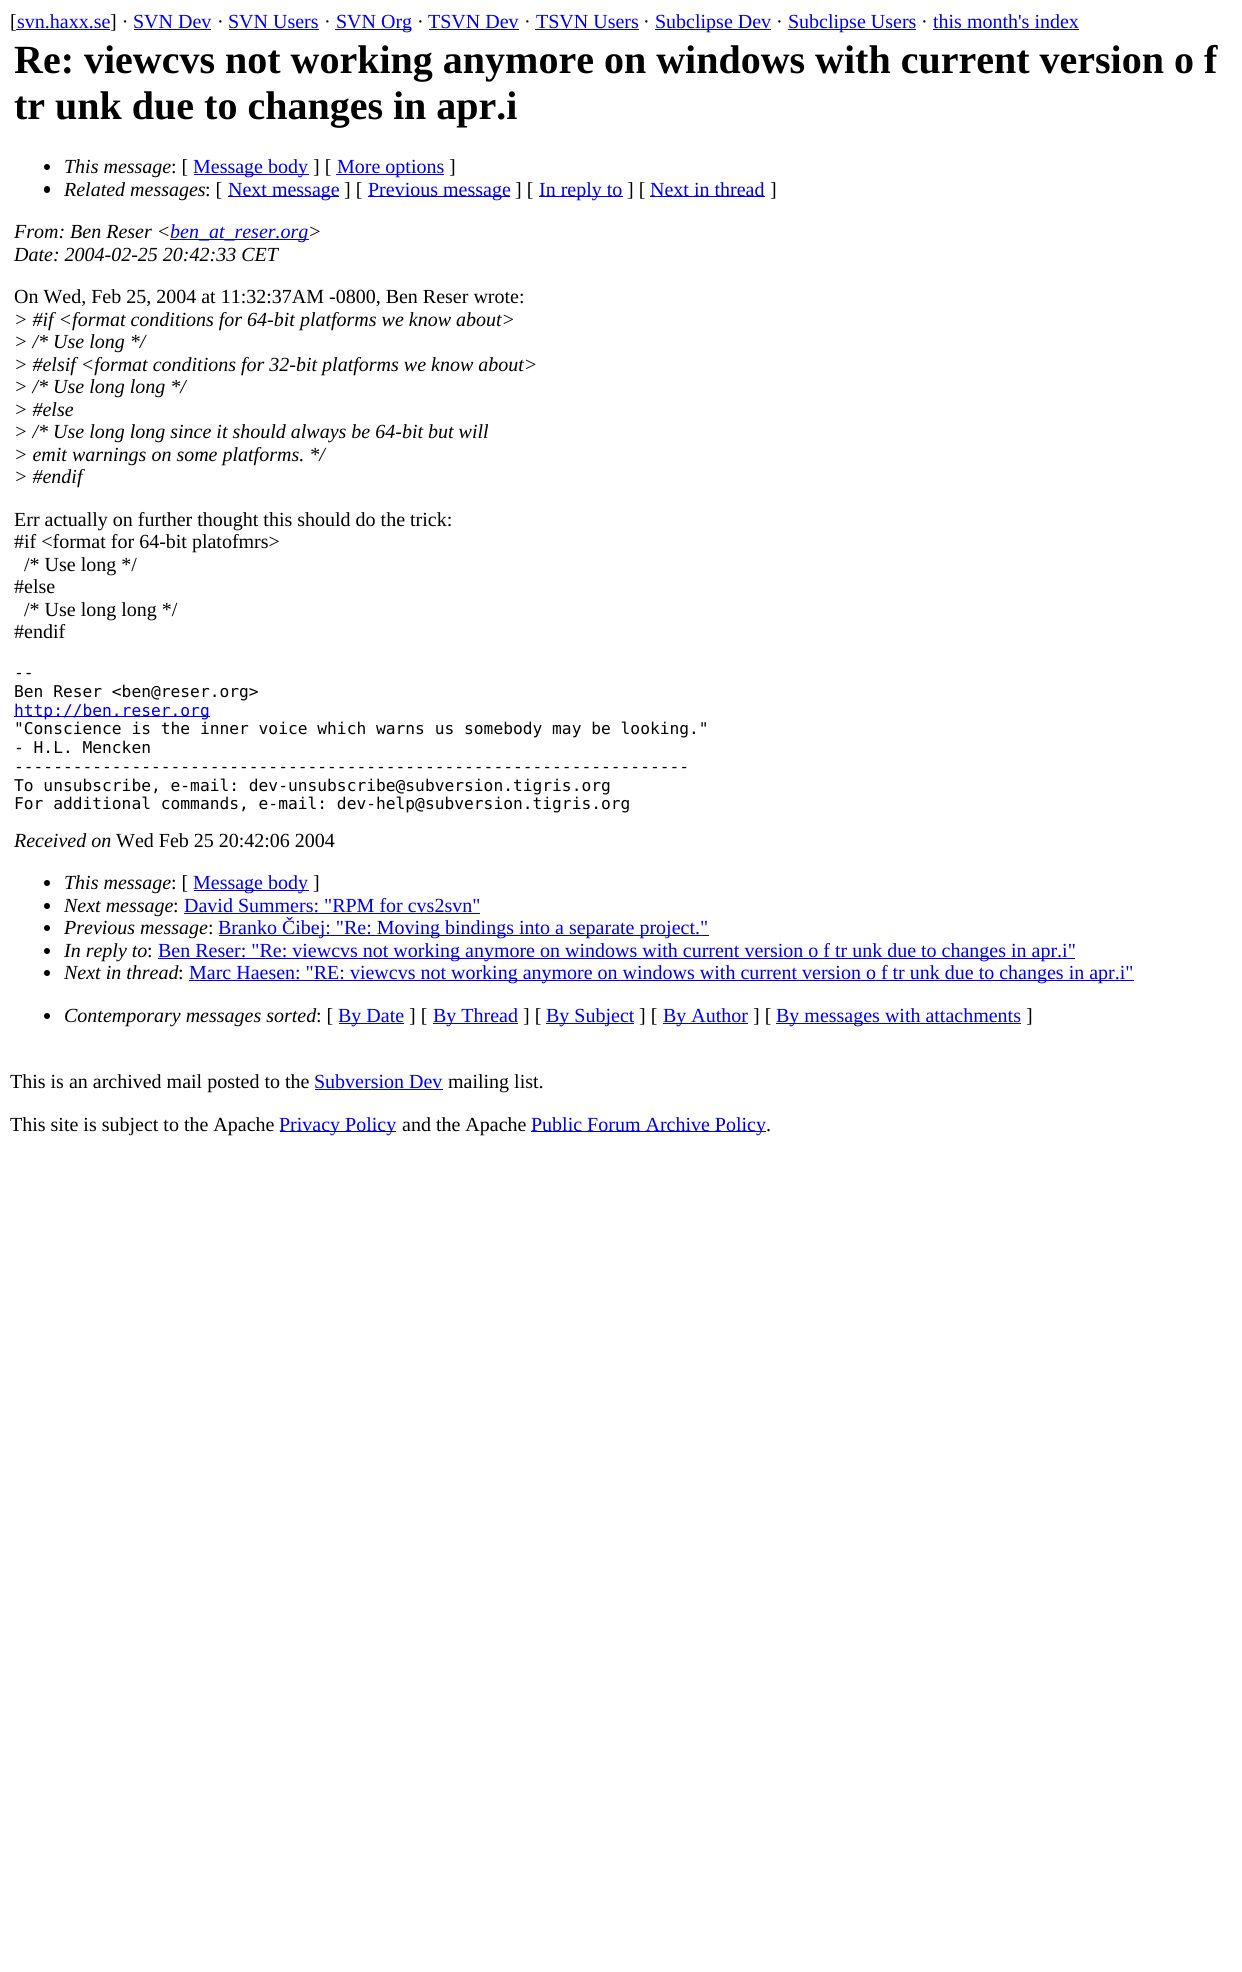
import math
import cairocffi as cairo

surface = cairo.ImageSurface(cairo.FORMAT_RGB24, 1242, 1972)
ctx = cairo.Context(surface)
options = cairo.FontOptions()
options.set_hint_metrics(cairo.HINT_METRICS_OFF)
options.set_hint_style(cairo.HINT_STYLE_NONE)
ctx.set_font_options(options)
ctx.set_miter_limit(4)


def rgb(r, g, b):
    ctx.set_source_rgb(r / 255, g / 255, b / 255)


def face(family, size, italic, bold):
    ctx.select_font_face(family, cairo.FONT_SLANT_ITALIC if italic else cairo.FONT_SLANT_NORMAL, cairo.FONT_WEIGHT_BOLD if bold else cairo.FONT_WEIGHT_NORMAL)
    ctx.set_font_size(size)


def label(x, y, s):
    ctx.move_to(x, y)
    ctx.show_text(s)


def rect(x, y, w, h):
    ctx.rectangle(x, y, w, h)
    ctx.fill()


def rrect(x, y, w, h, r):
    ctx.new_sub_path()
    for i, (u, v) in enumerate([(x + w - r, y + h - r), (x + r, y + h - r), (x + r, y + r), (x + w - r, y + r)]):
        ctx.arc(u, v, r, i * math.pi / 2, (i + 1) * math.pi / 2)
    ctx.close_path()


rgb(255, 255, 255)
ctx.paint()
face('Liberation Serif', 20, 0, 0)
rgb(0, 0, 0)
label(10, 28, '[')
rgb(0, 0, 238)
label(17, 28, 'svn.haxx.se')
rect(16, 29, 94, 1)
rgb(0, 0, 0)
label(110, 28, '] ·')
rgb(0, 0, 238)
label(133, 28, 'SVN Dev')
rect(134, 29, 77, 1)
rgb(0, 0, 0)
label(217, 28, '·')
rgb(0, 0, 238)
label(228, 28, 'SVN Users')
rect(229, 29, 90, 1)
rgb(0, 0, 0)
label(324, 28, '·')
rgb(0, 0, 238)
rect(335, 29, 76, 1)
label(336, 28, 'SVN Org')
rgb(0, 0, 0)
label(417, 28, '·')
rgb(0, 0, 238)
label(428, 28, 'TSVN Dev')
rect(429, 29, 90, 1)
rgb(0, 0, 0)
label(524, 28, '·')
rgb(0, 0, 238)
label(536, 28, 'TSVN Users')
rect(535, 29, 104, 1)
rgb(0, 0, 0)
label(643, 28, '·')
rgb(0, 0, 238)
rect(655, 29, 116, 1)
label(655, 28, 'Subclipse Dev')
rgb(0, 0, 0)
label(776, 28, '·')
rgb(0, 0, 238)
rect(788, 29, 128, 1)
label(788, 28, 'Subclipse Users')
rgb(0, 0, 0)
label(921, 28, '·')
rgb(0, 0, 238)
label(933, 28, 'this month\'s index')
rect(933, 29, 146, 1)
face('Liberation Serif', 40, 0, 1)
rgb(0, 0, 0)
label(14, 73, 'Re: viewcvs not working anymore on windows with current version o f')
label(14, 119, 'tr unk due to changes in apr.i')
ctx.new_path()
ctx.arc(47, 167, 3, 0, 2 * math.pi)
ctx.fill()
face('Liberation Serif', 20, 1, 0)
label(64, 173, 'This message')
face('Liberation Serif', 20, 0, 0)
label(171, 173, ': [')
rgb(0, 0, 238)
rect(194, 174, 115, 1)
label(193, 173, 'Message body')
rgb(0, 0, 0)
label(313, 173, '] [')
rgb(0, 0, 238)
rect(336, 174, 108, 1)
label(337, 173, 'More options')
rgb(0, 0, 0)
label(449, 173, ']')
rrect(44, 186, 6, 7, 3)
ctx.fill()
face('Liberation Serif', 20, 1, 0)
label(64, 196, 'Related messages')
face('Liberation Serif', 20, 0, 0)
label(205, 196, ': [')
rgb(0, 0, 238)
rect(228, 196, 111, 1)
label(228, 196, 'Next message')
rgb(0, 0, 0)
label(344, 196, '] [')
rgb(0, 0, 238)
rect(368, 196, 142, 1)
label(368, 196, 'Previous message')
rgb(0, 0, 0)
label(515, 196, '] [')
rgb(0, 0, 238)
rect(539, 196, 84, 1)
label(539, 196, 'In reply to')
rgb(0, 0, 0)
label(627, 196, '] [')
rgb(0, 0, 238)
rect(650, 196, 115, 1)
label(650, 196, 'Next in thread')
rgb(0, 0, 0)
label(770, 196, ']')
face('Liberation Serif', 20, 1, 0)
label(14, 238, 'From: Ben Reser <')
rgb(0, 0, 238)
rect(170, 239, 139, 1)
label(170, 238, 'ben_at_reser.org')
rgb(0, 0, 0)
label(308, 238, '>')
label(14, 261, 'Date: 2004-02-25 20:42:33 CET')
face('Liberation Serif', 20, 0, 0)
label(14, 303, 'On Wed, Feb 25, 2004 at 11:32:37AM -0800, Ben Reser wrote:')
face('Liberation Serif', 20, 1, 0)
label(14, 326, '> #if <format conditions for 64-bit platforms we know about>')
label(14, 348, '> /* Use long */')
label(14, 371, '> #elsif <format conditions for 32-bit platforms we know about>')
label(14, 393, '> /* Use long long */')
label(14, 416, '> #else')
label(14, 438, '> /* Use long long since it should always be 64-bit but will')
label(14, 461, '> emit warnings on some platforms. */')
label(14, 483, '> #endif')
face('Liberation Serif', 20, 0, 0)
label(14, 526, 'Err actually on further thought this should do the trick:')
label(14, 548, '#if <format for 64-bit platofmrs>')
label(24, 571, '/* Use long */')
label(14, 593, '#else')
label(24, 616, '/* Use long long */')
label(14, 638, '#endif')
face('DejaVu Sans Mono', 16.25, 0, 0)
label(14, 678, '--')
label(14, 697, 'Ben Reser <ben@reser.org>')
rgb(0, 0, 238)
rect(14, 716, 196, 1)
label(14, 716, 'http://ben.reser.org')
rgb(0, 0, 0)
label(14, 734, '"Conscience is the inner voice which warns us somebody may be looking."')
label(14, 753, '- H.L. Mencken')
label(14, 772, '---------------------------------------------------------------------')
label(14, 791, 'To unsubscribe, e-mail: dev-unsubscribe@subversion.tigris.org')
label(14, 809, 'For additional commands, e-mail: dev-help@subversion.tigris.org')
face('Liberation Serif', 20, 1, 0)
label(14, 847, 'Received on')
face('Liberation Serif', 20, 0, 0)
label(116, 847, 'Wed Feb 25 20:42:06 2004')
ctx.new_path()
ctx.arc(47, 883, 3, 0, 2 * math.pi)
ctx.fill()
face('Liberation Serif', 20, 1, 0)
label(64, 889, 'This message')
face('Liberation Serif', 20, 0, 0)
label(171, 889, ': [')
rgb(0, 0, 238)
rect(194, 890, 115, 1)
label(193, 889, 'Message body')
rgb(0, 0, 0)
label(313, 889, ']')
ctx.new_path()
ctx.arc(47, 906, 3, 0, 2 * math.pi)
ctx.fill()
face('Liberation Serif', 20, 1, 0)
label(64, 912, 'Next message')
face('Liberation Serif', 20, 0, 0)
label(173, 912, ':')
rgb(0, 0, 238)
label(184, 912, 'David Summers: "RPM for cvs2svn"')
rect(184, 913, 296, 1)
rgb(0, 0, 0)
ctx.new_path()
ctx.arc(47, 928, 3, 0, 2 * math.pi)
ctx.fill()
face('Liberation Serif', 20, 1, 0)
label(64, 934, 'Previous message')
face('Liberation Serif', 20, 0, 0)
label(208, 934, ':')
rgb(0, 0, 238)
rect(219, 935, 490, 1)
label(218, 934, 'Branko Čibej: "Re: Moving bindings into a separate project."')
rgb(0, 0, 0)
ctx.new_path()
ctx.arc(47, 951, 3, 0, 2 * math.pi)
ctx.fill()
face('Liberation Serif', 20, 1, 0)
label(64, 957, 'In reply to')
face('Liberation Serif', 20, 0, 0)
label(147, 957, ':')
rgb(0, 0, 238)
rect(158, 958, 917, 1)
label(158, 957, 'Ben Reser: "Re: viewcvs not working anymore on windows with current version o f tr unk due to changes in apr.i"')
rgb(0, 0, 0)
ctx.new_path()
ctx.arc(47, 973, 3, 0, 2 * math.pi)
ctx.fill()
face('Liberation Serif', 20, 1, 0)
label(64, 979, 'Next in thread')
face('Liberation Serif', 20, 0, 0)
label(178, 979, ':')
rgb(0, 0, 238)
rect(189, 980, 945, 1)
label(189, 979, 'Marc Haesen: "RE: viewcvs not working anymore on windows with current version o f tr unk due to changes in apr.i"')
rgb(0, 0, 0)
ctx.new_path()
ctx.arc(47, 1016, 3, 0, 2 * math.pi)
ctx.fill()
face('Liberation Serif', 20, 1, 0)
label(64, 1022, 'Contemporary messages sorted')
face('Liberation Serif', 20, 0, 0)
label(316, 1022, ': [')
rgb(0, 0, 238)
rect(339, 1023, 65, 1)
label(338, 1022, 'By Date')
rgb(0, 0, 0)
label(409, 1022, '] [')
rgb(0, 0, 238)
rect(433, 1023, 85, 1)
label(433, 1022, 'By Thread')
rgb(0, 0, 0)
label(523, 1022, '] [')
rgb(0, 0, 238)
rect(546, 1023, 88, 1)
label(546, 1022, 'By Subject')
rgb(0, 0, 0)
label(639, 1022, '] [')
rgb(0, 0, 238)
rect(663, 1023, 85, 1)
label(663, 1022, 'By Author')
rgb(0, 0, 0)
label(753, 1022, '] [')
rgb(0, 0, 238)
rect(776, 1023, 245, 1)
label(776, 1022, 'By messages with attachments')
rgb(0, 0, 0)
label(1026, 1022, ']')
label(10, 1088, 'This is an archived mail posted to the')
rgb(0, 0, 238)
label(314, 1088, 'Subversion Dev')
rect(315, 1089, 128, 1)
rgb(0, 0, 0)
label(448, 1088, 'mailing list.')
label(10, 1131, 'This site is subject to the Apache')
rgb(0, 0, 238)
rect(280, 1131, 116, 1)
label(279, 1131, 'Privacy Policy')
rgb(0, 0, 0)
label(402, 1131, 'and the Apache')
rgb(0, 0, 238)
rect(531, 1131, 235, 1)
label(531, 1131, 'Public Forum Archive Policy')
rgb(0, 0, 0)
label(766, 1131, '.')
surface.write_to_png('render.png')
